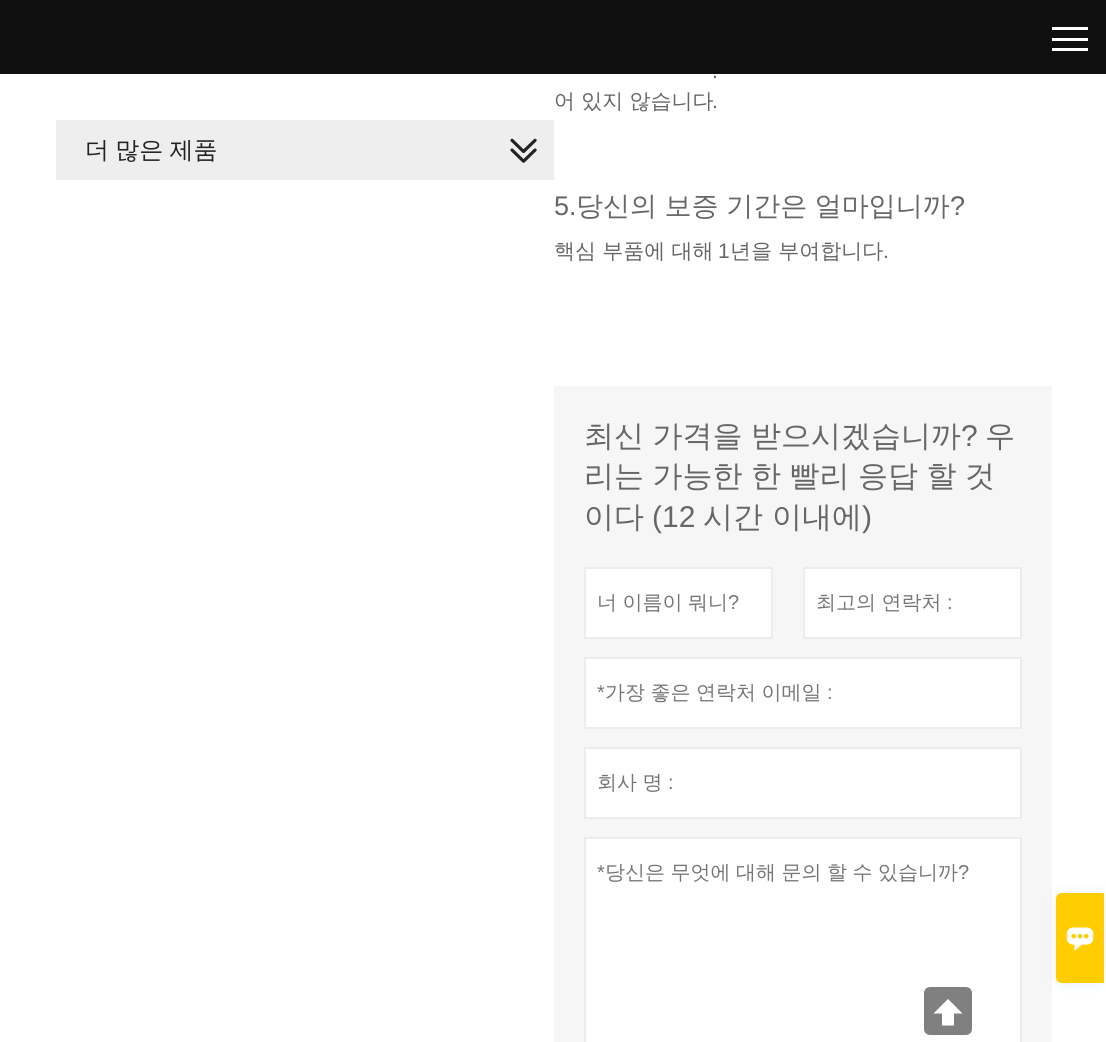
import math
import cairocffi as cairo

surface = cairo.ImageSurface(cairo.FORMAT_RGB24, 1106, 1042)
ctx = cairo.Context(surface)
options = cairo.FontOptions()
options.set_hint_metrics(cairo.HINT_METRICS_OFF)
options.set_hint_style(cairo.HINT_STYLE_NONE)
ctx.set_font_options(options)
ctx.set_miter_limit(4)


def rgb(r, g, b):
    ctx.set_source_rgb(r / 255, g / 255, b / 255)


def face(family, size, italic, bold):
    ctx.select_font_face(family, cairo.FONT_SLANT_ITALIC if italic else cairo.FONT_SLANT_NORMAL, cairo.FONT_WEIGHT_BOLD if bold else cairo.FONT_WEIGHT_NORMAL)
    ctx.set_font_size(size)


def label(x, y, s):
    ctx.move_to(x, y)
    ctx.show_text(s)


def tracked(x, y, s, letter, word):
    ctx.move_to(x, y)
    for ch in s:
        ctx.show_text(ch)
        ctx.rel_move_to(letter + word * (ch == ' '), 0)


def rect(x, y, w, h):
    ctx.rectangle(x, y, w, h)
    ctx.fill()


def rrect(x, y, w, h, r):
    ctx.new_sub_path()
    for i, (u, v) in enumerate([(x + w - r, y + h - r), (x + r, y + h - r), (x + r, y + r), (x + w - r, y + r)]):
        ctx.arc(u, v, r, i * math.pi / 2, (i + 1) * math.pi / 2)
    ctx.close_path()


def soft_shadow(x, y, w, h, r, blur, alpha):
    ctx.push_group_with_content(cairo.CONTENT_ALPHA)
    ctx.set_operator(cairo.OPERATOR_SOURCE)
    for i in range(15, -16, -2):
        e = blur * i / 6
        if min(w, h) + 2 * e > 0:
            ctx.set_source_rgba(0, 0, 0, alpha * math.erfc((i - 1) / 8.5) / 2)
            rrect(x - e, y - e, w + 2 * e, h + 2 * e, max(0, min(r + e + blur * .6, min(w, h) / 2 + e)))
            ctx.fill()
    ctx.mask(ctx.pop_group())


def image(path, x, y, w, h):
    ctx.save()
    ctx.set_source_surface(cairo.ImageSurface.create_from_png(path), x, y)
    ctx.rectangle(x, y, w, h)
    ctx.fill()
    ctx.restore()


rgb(255, 255, 255)
ctx.paint()
rgb(15, 15, 15)
rect(0, 0, 1106, 74)
rgb(255, 255, 255)
rect(1052, 38, 36, 3)
rect(1052, 27, 36, 3)
rect(1052, 48, 36, 3)
rgb(238, 238, 238)
rect(56, 120, 498, 60)
face('WenQuanYi Zen Hei Medium', 24, 0, 0)
rgb(34, 34, 34)
tracked(85, 158, '더 많은 제품', 0, -1)
image('image0.png', 510, 138, 27, 25)
face('Liberation Sans', 21, 0, 0)
rgb(102, 102, 102)
label(712, 78, '.')
face('WenQuanYi Zen Hei Medium', 21, 0, 0)
label(554, 108, '어 있지 않습니다')
face('Liberation Sans', 21, 0, 0)
label(712, 108, '.')
face('Liberation Sans', 27, 0, 0)
label(554, 215, '5.')
face('WenQuanYi Zen Hei Medium', 27, 0, 0)
tracked(576, 215, '당신의 보증 기간은 얼마입니까', 0, -0.5)
face('Liberation Sans', 27, 0, 0)
label(950, 215, '?')
face('WenQuanYi Zen Hei Medium', 21, 0, 0)
label(554, 258, '핵심 부품에 대해')
face('Liberation Sans', 21, 0, 0)
label(718, 258, '1')
face('WenQuanYi Zen Hei Medium', 21, 0, 0)
label(730, 258, '년을 부여합니다')
face('Liberation Sans', 21, 0, 0)
label(883, 258, '.')
rgb(246, 246, 246)
rect(554, 386, 498, 656)
face('WenQuanYi Zen Hei Medium', 30, 0, 0)
rgb(102, 102, 102)
tracked(584, 446, '최신 가격을 받으시겠습니까', 0, -0.5)
face('Liberation Sans', 30, 0, 0)
label(961, 446, '?')
face('WenQuanYi Zen Hei Medium', 30, 0, 0)
label(985, 446, '우')
tracked(584, 486, '리는 가능한 한 빨리 응답 할 것', 0, -0.5)
label(584, 527, '이다')
face('Liberation Sans', 30, 0, 0)
label(652, 527, '(12')
face('WenQuanYi Zen Hei Medium', 30, 0, 0)
label(703, 527, '시간 이내에')
face('Liberation Sans', 30, 0, 0)
label(862, 527, ')')
rgb(255, 255, 255)
ctx.rectangle(585, 568, 187, 70)
ctx.fill_preserve()
rgb(236, 236, 236)
ctx.stroke()
face('WenQuanYi Zen Hei Medium', 20, 0, 0)
rgb(117, 117, 117)
tracked(597, 609, '너 이름이 뭐니', 0, -0.5)
face('Liberation Sans', 20, 0, 0)
label(728, 609, '?')
rgb(255, 255, 255)
ctx.rectangle(804, 568, 217, 70)
ctx.fill_preserve()
rgb(236, 236, 236)
ctx.stroke()
face('WenQuanYi Zen Hei Medium', 20, 0, 0)
rgb(117, 117, 117)
tracked(816, 609, '최고의 연락처', 0, -0.5)
face('Liberation Sans', 20, 0, 0)
label(947, 609, ':')
rgb(255, 255, 255)
ctx.rectangle(585, 658, 436, 70)
ctx.fill_preserve()
rgb(236, 236, 236)
ctx.stroke()
rgb(117, 117, 117)
label(597, 699, '*')
face('WenQuanYi Zen Hei Medium', 20, 0, 0)
tracked(605, 699, '가장 좋은 연락처 이메일', 0, -0.5)
face('Liberation Sans', 20, 0, 0)
label(827, 699, ':')
rgb(255, 255, 255)
ctx.rectangle(585, 748, 436, 70)
ctx.fill_preserve()
rgb(236, 236, 236)
ctx.stroke()
face('WenQuanYi Zen Hei Medium', 20, 0, 0)
rgb(117, 117, 117)
tracked(597, 789, '회사 명', 0, -0.5)
face('Liberation Sans', 20, 0, 0)
label(668, 789, ':')
rgb(255, 255, 255)
ctx.rectangle(585, 838, 436, 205)
ctx.fill_preserve()
rgb(236, 236, 236)
ctx.stroke()
rgb(117, 117, 117)
label(597, 879, '*')
face('WenQuanYi Zen Hei Medium', 20, 0, 0)
tracked(605, 879, '당신은 무엇에 대해 문의 할 수 있습니까', 0, -0.5)
face('Liberation Sans', 20, 0, 0)
label(958, 879, '?')
rgb(234, 240, 246)
soft_shadow(1056, 893, 48, 90, 6, 6, 1)
rgb(255, 205, 0)
ctx.new_path()
ctx.move_to(1062, 893)
ctx.line_to(1104, 893)
ctx.line_to(1104, 983)
ctx.line_to(1062, 983)
ctx.curve_to(1058.5, 983, 1056, 980.5, 1056, 977)
ctx.line_to(1056, 899)
ctx.curve_to(1056, 895.5, 1058.5, 893, 1062, 893)
ctx.close_path()
ctx.fill()
image('image1.png', 1066, 927, 28, 24)
rgb(128, 128, 128)
rrect(924, 987, 48, 48, 6)
ctx.fill()
rgb(255, 255, 255)
ctx.new_path()
ctx.move_to(962.5, 1013.5)
ctx.line_to(948, 999)
ctx.line_to(933.5, 1013.5)
ctx.line_to(942, 1013.5)
ctx.line_to(942, 1025.5)
ctx.line_to(954, 1025.5)
ctx.line_to(954, 1013.5)
ctx.close_path()
ctx.fill()
surface.write_to_png('render.png')
